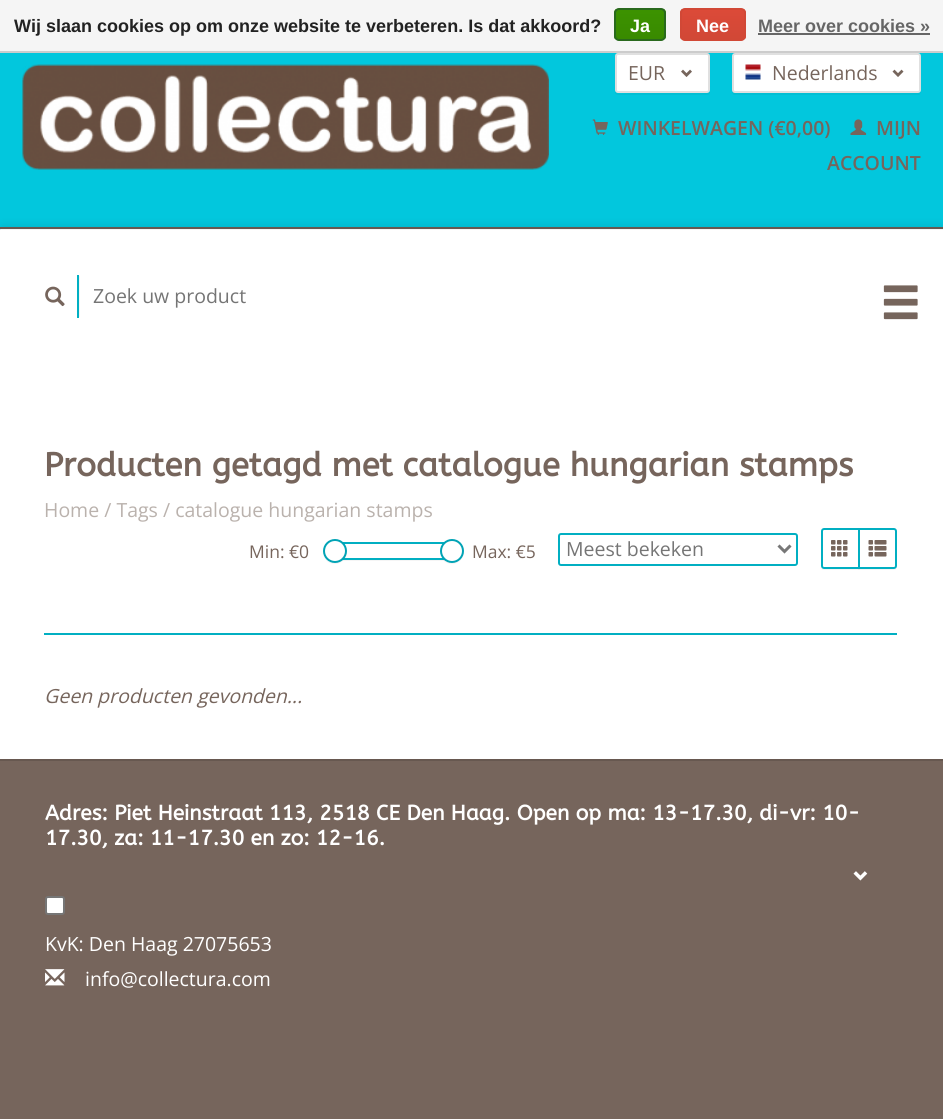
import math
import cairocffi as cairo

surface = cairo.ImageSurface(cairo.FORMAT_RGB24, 943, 1119)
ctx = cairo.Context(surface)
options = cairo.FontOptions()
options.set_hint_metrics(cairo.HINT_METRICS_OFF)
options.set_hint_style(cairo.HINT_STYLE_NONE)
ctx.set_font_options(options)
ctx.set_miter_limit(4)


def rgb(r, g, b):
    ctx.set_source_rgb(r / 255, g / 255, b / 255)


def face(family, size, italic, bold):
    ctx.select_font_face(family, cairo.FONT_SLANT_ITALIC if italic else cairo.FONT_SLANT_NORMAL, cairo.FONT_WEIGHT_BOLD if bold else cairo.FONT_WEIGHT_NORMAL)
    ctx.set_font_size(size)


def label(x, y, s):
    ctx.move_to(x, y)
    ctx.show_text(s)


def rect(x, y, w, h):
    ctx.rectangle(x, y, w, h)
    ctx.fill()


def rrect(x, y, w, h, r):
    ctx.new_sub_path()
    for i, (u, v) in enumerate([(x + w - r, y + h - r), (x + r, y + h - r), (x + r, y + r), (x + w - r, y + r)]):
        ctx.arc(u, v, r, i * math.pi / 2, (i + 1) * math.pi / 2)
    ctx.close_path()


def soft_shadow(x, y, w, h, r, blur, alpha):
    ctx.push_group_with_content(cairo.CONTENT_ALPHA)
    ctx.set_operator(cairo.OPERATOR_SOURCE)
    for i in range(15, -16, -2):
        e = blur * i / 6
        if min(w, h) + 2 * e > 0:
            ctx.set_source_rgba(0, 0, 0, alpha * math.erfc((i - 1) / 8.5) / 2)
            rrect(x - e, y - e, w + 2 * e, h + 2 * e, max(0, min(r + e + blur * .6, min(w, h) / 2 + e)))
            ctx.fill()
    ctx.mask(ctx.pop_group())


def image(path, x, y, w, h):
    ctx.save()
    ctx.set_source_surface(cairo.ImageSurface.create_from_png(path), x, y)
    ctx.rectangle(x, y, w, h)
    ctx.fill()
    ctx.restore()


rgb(2, 199, 221)
ctx.paint()
rgb(245, 245, 245)
rect(0, 0, 943, 51)
rgb(204, 204, 204)
rect(0, 51, 943, 2)
face('Liberation Sans', 18, 0, 1)
rgb(34, 34, 34)
label(14, 32, 'Wij slaan cookies op om onze website te verbeteren. Is dat akkoord?')
ctx.save()
rrect(614, 8, 52, 33, 5)
ctx.clip()
gradient = cairo.LinearGradient(640, 9, 640, 39)
gradient.add_color_stop_rgba(0, 0.235, 0.576, 0, 1)
gradient.add_color_stop_rgba(1, 0.224, 0.541, 0, 1)
ctx.set_source(gradient)
rect(614, 9, 52, 30)
ctx.restore()
rrect(615, 9, 50, 31, 4)
rgb(41, 105, 29)
ctx.stroke()
rgb(255, 255, 255)
label(630, 32, 'Ja')
ctx.save()
rrect(680, 8, 66, 33, 5)
ctx.clip()
gradient = cairo.LinearGradient(713, 9, 713, 39)
gradient.add_color_stop_rgba(0, 0.863, 0.29, 0.22, 1)
gradient.add_color_stop_rgba(1, 0.82, 0.282, 0.212, 1)
ctx.set_source(gradient)
rect(680, 9, 66, 30)
ctx.restore()
rrect(681, 9, 64, 31, 4)
rgb(209, 72, 54)
ctx.stroke()
rgb(255, 255, 255)
label(696, 32, 'Nee')
rgb(102, 102, 102)
label(758, 32, 'Meer over cookies »')
rect(758, 33, 172, 2)
image('image0.png', 22, 64, 527, 106)
rgb(2, 191, 212)
ctx.new_path()
ctx.move_to(615, 90)
ctx.line_to(615, 92)
ctx.curve_to(615, 94, 616, 95, 618, 95)
ctx.line_to(707, 95)
ctx.curve_to(709, 95, 710, 94, 710, 92)
ctx.line_to(710, 57)
ctx.line_to(709, 55)
ctx.line_to(710, 84)
ctx.curve_to(710, 86, 711, 93, 706, 93)
ctx.line_to(633, 93)
ctx.curve_to(626, 93, 615, 96, 615, 90)
ctx.close_path()
ctx.fill()
rgb(255, 255, 255)
rrect(616, 54, 93, 38, 2)
ctx.fill_preserve()
rgb(224, 224, 224)
ctx.stroke()
face('Open Sans', 19.5, 0, 0)
rgb(118, 101, 92)
label(628, 80, 'EUR')
image('image1.png', 681, 69, 11, 8)
rgb(2, 191, 212)
ctx.new_path()
ctx.move_to(732, 90)
ctx.curve_to(732, 92, 732, 94, 734, 95)
ctx.line_to(919, 95)
ctx.curve_to(921, 94, 921, 92, 921, 90)
ctx.curve_to(921, 92, 920, 93, 918, 93)
ctx.line_to(735, 93)
ctx.curve_to(733, 93, 732, 92, 732, 90)
ctx.close_path()
ctx.fill()
rgb(255, 255, 255)
rrect(733, 54, 187, 38, 2)
ctx.fill_preserve()
rgb(224, 224, 224)
ctx.stroke()
image('image2.png', 745, 64, 16, 16)
rgb(118, 101, 92)
label(772, 80, 'Nederlands')
image('image3.png', 892, 69, 12, 8)
image('image4.png', 592, 119, 16, 16)
face('Open Sans SemiBold', 19.5, 0, 0)
label(618, 135, 'WINKELWAGEN (€0,00)')
image('image5.png', 850, 119, 17, 16)
label(876, 135, 'MIJN')
label(827, 170, 'ACCOUNT')
rgb(0, 0, 0)
soft_shadow(0, 227, 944, 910, 3, 5, 0.13)
rgb(255, 255, 255)
rrect(0, 227, 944, 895, 3)
ctx.fill()
ctx.set_source_rgba(0, 0, 0, 0.04)
rect(0, 229, 943, 1)
rgb(103, 88, 80)
rect(0, 227, 943, 2)
ctx.save()
ctx.rectangle(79, 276, 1, 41)
ctx.clip()
rgb(0, 0, 0)
soft_shadow(38, 276, 42, 41, 0, 1, 0.06)
ctx.restore()
rgb(1, 175, 194)
rect(77, 275, 2, 43)
image('image6.png', 45, 286, 20, 21)
face('Open Sans', 19.5, 0, 0)
rgb(117, 117, 117)
label(93, 303, 'Zoek uw product')
image('image7.png', 883, 285, 35, 35)
face('ABeeZee', 32.9, 0, 1)
rgb(118, 101, 92)
label(44, 476, 'Producten getagd met catalogue hungarian stamps')
face('Open Sans', 19.5, 0, 0)
rgb(186, 178, 173)
label(44, 517, 'Home / Tags / catalogue hungarian stamps')
face('Open Sans', 17.5, 0, 0)
rgb(118, 101, 92)
label(249, 558, 'Min: €0')
rgb(245, 245, 245)
rect(336, 560, 117, 1)
ctx.rectangle(337, 543, 115, 16)
rgb(1, 175, 194)
ctx.stroke()
ctx.set_source_rgba(0, 0, 0, 0.04)
ctx.new_path()
ctx.move_to(323.5, 555)
ctx.curve_to(324, 557.5, 325.5, 560, 327.5, 561.5)
ctx.curve_to(337.5, 569, 350.5, 558.5, 346, 547.5)
ctx.curve_to(350, 561.5, 329, 568.5, 323.5, 555)
ctx.close_path()
ctx.fill()
rgb(255, 255, 255)
ctx.arc(335, 551, 11, 0, 2 * math.pi)
ctx.fill_preserve()
rgb(1, 163, 181)
ctx.stroke()
ctx.set_source_rgba(0, 0, 0, 0.04)
ctx.new_path()
ctx.move_to(440.5, 555)
ctx.curve_to(441, 557.5, 442.5, 560, 444.5, 561.5)
ctx.curve_to(454.5, 569, 467.5, 558.5, 463, 547.5)
ctx.curve_to(467, 561.5, 446, 568.5, 440.5, 555)
ctx.close_path()
ctx.fill()
rgb(255, 255, 255)
ctx.arc(452, 551, 11, 0, 2 * math.pi)
ctx.fill_preserve()
rgb(1, 163, 181)
ctx.stroke()
rgb(118, 101, 92)
label(472, 558, 'Max: €5')
rrect(559, 534, 238, 31, 2)
rgb(1, 175, 194)
ctx.stroke()
ctx.new_path()
ctx.move_to(778.5, 545.5)
ctx.line_to(784.5, 551.5)
ctx.line_to(790.5, 545.5)
rgb(119, 119, 119)
ctx.set_line_width(3)
ctx.stroke()
face('Open Sans', 19.5, 0, 0)
rgb(117, 117, 117)
label(566, 556, 'Meest bekeken')
rgb(245, 245, 245)
ctx.new_path()
ctx.move_to(821, 567)
ctx.curve_to(821, 569, 822, 570, 824, 570)
ctx.line_to(860, 570)
ctx.line_to(860, 530)
ctx.line_to(860, 568)
ctx.line_to(823, 568)
ctx.close_path()
ctx.fill()
rgb(255, 255, 255)
ctx.new_path()
ctx.move_to(824, 529)
ctx.line_to(859, 529)
ctx.line_to(859, 568)
ctx.line_to(824, 568)
ctx.curve_to(823, 568, 822, 567, 822, 566)
ctx.line_to(822, 531)
ctx.curve_to(822, 530, 823, 529, 824, 529)
ctx.close_path()
ctx.fill_preserve()
rgb(1, 175, 194)
ctx.set_line_width(2)
ctx.stroke()
image('image8.png', 831, 540, 17, 17)
ctx.set_source_rgba(0, 0, 0, 0.04)
ctx.new_path()
ctx.move_to(858, 568.5)
ctx.line_to(858, 570)
ctx.line_to(894, 570)
ctx.curve_to(895.5, 570, 897, 568.5, 897, 567)
ctx.line_to(897, 565.5)
ctx.curve_to(897, 567, 895.5, 568.5, 894, 568.5)
ctx.close_path()
ctx.fill()
rgb(255, 255, 255)
ctx.new_path()
ctx.move_to(859, 529)
ctx.line_to(894, 529)
ctx.curve_to(895, 529, 896, 530, 896, 531)
ctx.line_to(896, 566)
ctx.curve_to(896, 567, 895, 568, 894, 568)
ctx.line_to(859, 568)
ctx.close_path()
ctx.fill_preserve()
rgb(1, 175, 194)
ctx.stroke()
image('image9.png', 868, 540, 19, 17)
rect(44, 633, 853, 2)
face('Open Sans', 19.5, 1, 0)
rgb(118, 101, 92)
label(44, 703, 'Geen producten gevonden...')
rect(0, 761, 943, 358)
rgb(103, 88, 80)
rect(0, 759, 943, 2)
face('ABeeZee', 21, 0, 1)
rgb(255, 255, 255)
label(45, 820, 'Adres: Piet Heinstraat 113, 2518 CE Den Haag. Open op ma: 13-17.30, di-vr: 10-')
label(45, 845, '17.30, za: 11-17.30 en zo: 12-16.')
image('image10.png', 853, 871, 15, 10)
rrect(46, 897, 18, 17, 2)
ctx.fill_preserve()
rgb(118, 118, 118)
ctx.stroke()
face('Open Sans', 19.5, 0, 0)
rgb(255, 255, 255)
label(45, 951, 'KvK: Den Haag 27075653')
image('image11.png', 45, 969, 20, 17)
label(85, 986, 'info@collectura.com')
surface.write_to_png('render.png')
